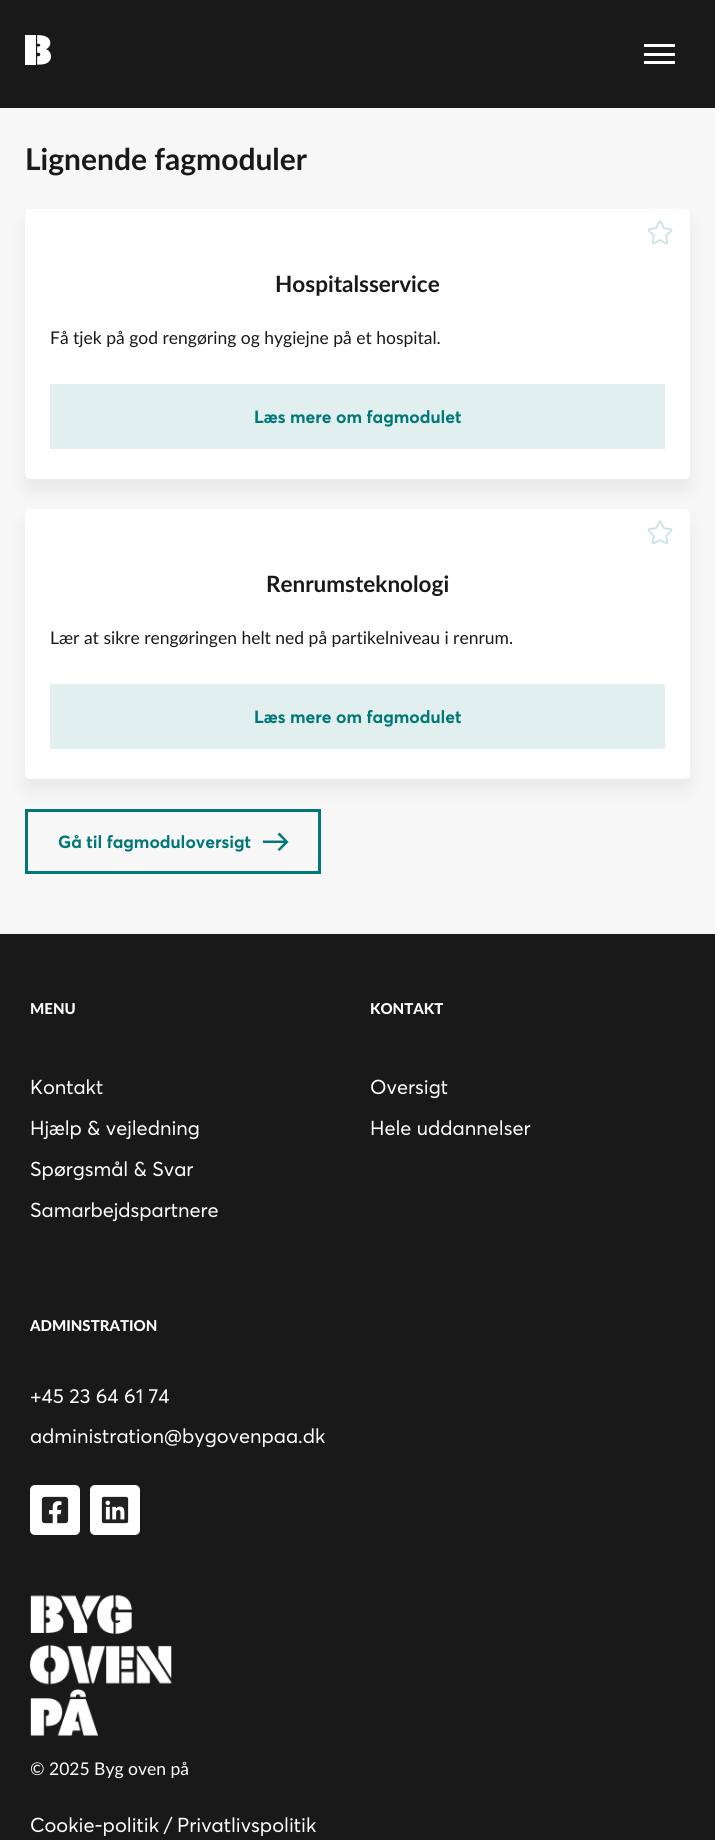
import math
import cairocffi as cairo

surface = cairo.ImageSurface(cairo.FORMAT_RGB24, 715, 1840)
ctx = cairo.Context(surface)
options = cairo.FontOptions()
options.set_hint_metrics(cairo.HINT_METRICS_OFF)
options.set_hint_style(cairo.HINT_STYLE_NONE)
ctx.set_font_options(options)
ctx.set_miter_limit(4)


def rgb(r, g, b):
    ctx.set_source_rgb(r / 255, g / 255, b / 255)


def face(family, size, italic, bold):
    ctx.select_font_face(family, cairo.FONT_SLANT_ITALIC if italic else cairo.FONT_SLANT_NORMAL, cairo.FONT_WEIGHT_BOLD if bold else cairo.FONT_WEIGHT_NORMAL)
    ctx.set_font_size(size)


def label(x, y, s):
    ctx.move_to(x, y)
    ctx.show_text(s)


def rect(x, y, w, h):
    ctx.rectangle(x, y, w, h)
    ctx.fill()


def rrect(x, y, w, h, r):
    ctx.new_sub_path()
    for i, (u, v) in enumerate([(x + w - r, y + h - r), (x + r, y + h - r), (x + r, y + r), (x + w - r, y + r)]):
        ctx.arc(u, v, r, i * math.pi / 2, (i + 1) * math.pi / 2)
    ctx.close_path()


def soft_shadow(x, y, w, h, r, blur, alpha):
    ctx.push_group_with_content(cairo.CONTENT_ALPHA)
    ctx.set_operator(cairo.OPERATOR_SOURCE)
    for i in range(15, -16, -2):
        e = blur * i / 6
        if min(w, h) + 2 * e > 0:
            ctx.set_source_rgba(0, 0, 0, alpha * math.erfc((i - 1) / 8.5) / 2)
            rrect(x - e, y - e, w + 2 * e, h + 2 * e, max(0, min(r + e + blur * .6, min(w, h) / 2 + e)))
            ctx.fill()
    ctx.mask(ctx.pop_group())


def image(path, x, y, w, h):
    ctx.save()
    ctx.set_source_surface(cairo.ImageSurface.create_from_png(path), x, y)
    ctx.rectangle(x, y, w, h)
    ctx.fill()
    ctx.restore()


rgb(247, 247, 247)
ctx.paint()
rgb(25, 25, 26)
rect(0, 0, 715, 108)
image('image0.png', 25, 35, 26, 30)
rgb(255, 255, 255)
rect(644, 44, 31, 3)
rect(644, 53, 31, 3)
rect(644, 61, 31, 3)
face('Lato', 30, 0, 1)
rgb(25, 25, 26)
label(25, 170, 'Lignende fagmoduler')
rgb(0, 0, 0)
soft_shadow(25, 221, 665, 270, 5, 9.5, 0.06)
rgb(255, 255, 255)
rrect(25, 209, 665, 270, 5)
ctx.fill()
image('image1.png', 648, 220, 25, 25)
face('Lato', 22.5, 0, 1)
rgb(25, 25, 26)
label(275, 292, 'Hospitalsservice')
face('Lato', 17.5, 0, 0)
label(50, 344, 'Få tjek på god rengøring og hygiejne på et hospital.')
rgb(225, 239, 239)
rect(50, 384, 615, 65)
face('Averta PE', 17.5, 0, 1)
rgb(2, 119, 121)
label(254, 423, 'Læs mere om fagmodulet')
ctx.rectangle(26.5, 810.5, 293, 62)
ctx.set_line_width(3)
ctx.stroke()
rgb(0, 0, 0)
soft_shadow(25, 521, 665, 270, 5, 9.5, 0.06)
rgb(255, 255, 255)
rrect(25, 509, 665, 270, 5)
ctx.fill()
image('image1.png', 648, 520, 25, 25)
face('Lato', 22.5, 0, 1)
rgb(25, 25, 26)
label(266, 592, 'Renrumsteknologi')
face('Lato', 17.5, 0, 0)
label(50, 644, 'Lær at sikre rengøringen helt ned på partikelniveau i renrum.')
rgb(225, 239, 239)
rect(50, 684, 615, 65)
face('Averta PE', 17.5, 0, 1)
rgb(2, 119, 121)
label(254, 723, 'Læs mere om fagmodulet')
label(58, 848, 'Gå til fagmoduloversigt')
ctx.new_path()
ctx.move_to(279.5, 832.5)
ctx.line_to(288.5, 842)
ctx.line_to(279.5, 851)
ctx.line_to(277.5, 849.5)
ctx.line_to(284, 843)
ctx.line_to(263, 843)
ctx.line_to(263, 840.5)
ctx.line_to(284, 840.5)
ctx.line_to(277.5, 834.5)
ctx.close_path()
ctx.fill()
rgb(25, 25, 26)
rect(0, 934, 715, 906)
face('Lato Black', 15, 0, 0)
rgb(255, 255, 255)
label(30, 1014, 'MENU')
face('Averta PE', 20, 0, 0)
label(30, 1094, 'Kontakt')
label(30, 1135, 'Hjælp & vejledning')
label(30, 1176, 'Spørgsmål & Svar')
label(30, 1217, 'Samarbejdspartnere')
face('Lato Black', 15, 0, 0)
label(370, 1014, 'KONTAKT')
face('Averta PE', 20, 0, 0)
label(370, 1094, 'Oversigt')
label(370, 1135, 'Hele uddannelser')
face('Lato Black', 15, 0, 0)
label(30, 1331, 'ADMINSTRATION')
face('Averta PE', 20, 0, 0)
label(30, 1403, '+45 23 64 61 74')
label(30, 1443, 'administration@bygovenpaa.dk')
rrect(30, 1485, 50, 50, 5)
ctx.fill()
image('image2.png', 41, 1496, 28, 28)
rrect(90, 1485, 50, 50, 5)
ctx.fill()
image('image3.png', 101, 1496, 28, 28)
image('image4.png', 30, 1594, 142, 142)
face('Lato', 17.5, 0, 0)
label(30, 1775, '© 2025 Byg oven på')
face('Averta PE', 20, 0, 0)
label(30, 1832, 'Cookie-politik')
label(164, 1832, '/')
label(177, 1832, 'Privatlivspolitik')
surface.write_to_png('render.png')
